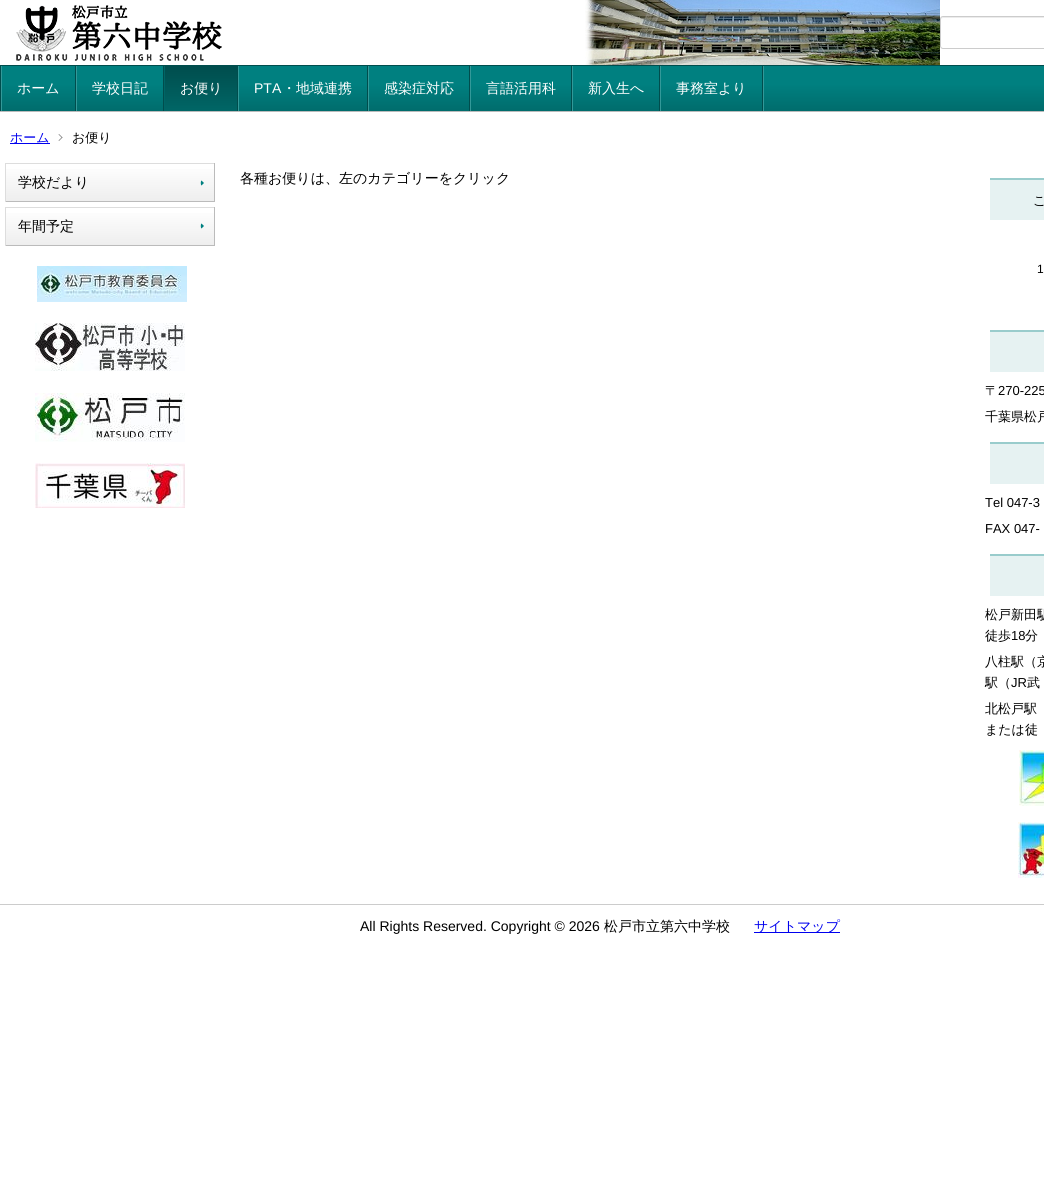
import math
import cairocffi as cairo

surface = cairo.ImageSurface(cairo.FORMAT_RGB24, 1044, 1196)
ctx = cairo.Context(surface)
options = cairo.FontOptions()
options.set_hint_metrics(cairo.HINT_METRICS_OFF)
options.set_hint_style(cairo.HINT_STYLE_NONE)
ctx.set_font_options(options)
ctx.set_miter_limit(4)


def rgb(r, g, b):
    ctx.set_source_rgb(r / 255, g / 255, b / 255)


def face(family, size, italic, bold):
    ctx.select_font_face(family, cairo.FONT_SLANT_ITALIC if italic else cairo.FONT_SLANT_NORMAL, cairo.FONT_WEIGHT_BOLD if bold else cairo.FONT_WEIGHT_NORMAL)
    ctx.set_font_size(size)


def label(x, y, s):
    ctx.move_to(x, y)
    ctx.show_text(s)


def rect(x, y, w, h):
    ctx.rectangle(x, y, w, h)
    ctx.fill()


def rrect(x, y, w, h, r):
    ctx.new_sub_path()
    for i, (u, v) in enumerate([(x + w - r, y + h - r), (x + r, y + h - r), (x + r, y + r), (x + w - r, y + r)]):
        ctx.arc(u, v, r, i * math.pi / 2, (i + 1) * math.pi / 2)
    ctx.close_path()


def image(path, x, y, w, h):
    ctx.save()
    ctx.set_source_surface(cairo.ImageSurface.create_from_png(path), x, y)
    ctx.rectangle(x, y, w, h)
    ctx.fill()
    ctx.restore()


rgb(255, 255, 255)
ctx.paint()
image('image0.png', 585, 0, 355, 65)
image('image1.png', 16, 5, 206, 56)
rgb(236, 236, 236)
ctx.new_path()
ctx.move_to(943, 18)
ctx.line_to(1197, 18)
ctx.curve_to(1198, 18, 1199, 19, 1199, 20)
ctx.line_to(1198, 17)
ctx.line_to(943, 17)
ctx.curve_to(941, 17, 941, 19, 941, 20)
ctx.curve_to(941, 19, 942, 18, 943, 18)
ctx.close_path()
ctx.fill()
rrect(940.5, 16.5, 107, 32, 2.5)
rgb(204, 204, 204)
ctx.set_line_width(1)
ctx.stroke()
rgb(0, 128, 128)
rect(2, 66, 1042, 18)
rgb(0, 77, 77)
rect(0, 65, 1044, 1)
rgb(187, 187, 187)
rect(0, 111, 1044, 1)
rgb(0, 77, 77)
rect(0, 66, 1, 45)
gradient = cairo.LinearGradient(600, 84, 600, 111)
gradient.add_color_stop_rgba(0, 0, 0.502, 0.502, 1)
gradient.add_color_stop_rgba(1, 0, 0.424, 0.424, 1)
ctx.set_source(gradient)
rect(2, 84, 1042, 27)
rgb(0, 77, 77)
rect(75, 66, 1, 45)
rgb(51, 153, 153)
rect(1, 66, 1, 45)
face('WenQuanYi Zen Hei Medium', 14, 0, 0)
rgb(255, 255, 255)
label(17, 93, 'ホーム')
rgb(0, 77, 77)
rect(163, 66, 1, 45)
rgb(51, 153, 153)
rect(76, 66, 1, 45)
rgb(255, 255, 255)
label(92, 93, '学校日記')
gradient = cairo.LinearGradient(201, 66, 201, 111)
gradient.add_color_stop_rgba(0, 0, 0.302, 0.302, 1)
gradient.add_color_stop_rgba(1, 0, 0.4, 0.4, 1)
ctx.set_source(gradient)
rect(165, 66, 72, 45)
rgb(0, 77, 77)
rect(237, 66, 1, 45)
rgb(0, 102, 102)
rect(164, 66, 1, 45)
rgb(255, 255, 255)
label(180, 93, 'お便り')
rgb(0, 77, 77)
rect(367, 66, 1, 45)
rgb(51, 153, 153)
rect(238, 66, 1, 45)
face('Liberation Sans', 14, 0, 0)
rgb(255, 255, 255)
label(254, 93, 'PTA')
face('WenQuanYi Zen Hei Medium', 14, 0, 0)
label(282, 93, '・地域連携')
rgb(0, 77, 77)
rect(469, 66, 1, 45)
rgb(51, 153, 153)
rect(368, 66, 1, 45)
rgb(255, 255, 255)
label(384, 93, '感染症対応')
rgb(0, 77, 77)
rect(571, 66, 1, 45)
rgb(51, 153, 153)
rect(470, 66, 1, 45)
rgb(255, 255, 255)
label(486, 93, '言語活用科')
rgb(0, 77, 77)
rect(659, 66, 1, 45)
rgb(51, 153, 153)
rect(572, 66, 1, 45)
rgb(255, 255, 255)
label(588, 93, '新入生へ')
rgb(51, 153, 153)
rect(763, 66, 1, 45)
rgb(0, 77, 77)
rect(762, 66, 1, 45)
rgb(51, 153, 153)
rect(660, 66, 1, 45)
rgb(255, 255, 255)
label(676, 93, '事務室より')
rgb(0, 0, 238)
rect(10, 143, 40, 1)
face('WenQuanYi Zen Hei Medium', 13, 0, 0)
label(10, 142, 'ホーム')
rgb(119, 119, 119)
ctx.new_path()
ctx.move_to(59, 134)
ctx.line_to(62.5, 137.5)
ctx.line_to(62, 138)
ctx.line_to(58.5, 134.5)
ctx.close_path()
ctx.fill()
ctx.new_path()
ctx.move_to(62, 137)
ctx.line_to(62.5, 137.5)
ctx.line_to(59, 141)
ctx.line_to(58.5, 140.5)
ctx.close_path()
ctx.fill()
rgb(0, 0, 0)
label(72, 142, 'お便り')
gradient = cairo.LinearGradient(110, 164, 110, 201)
gradient.add_color_stop_rgba(0, 1, 1, 1, 1)
gradient.add_color_stop_rgba(1, 0.933, 0.933, 0.933, 1)
ctx.set_source(gradient)
rect(6, 169, 208, 32)
rgb(221, 221, 221)
rect(5, 163, 210, 1)
rgb(187, 187, 187)
rect(214, 163, 1, 39)
rect(5, 201, 210, 1)
rgb(221, 221, 221)
rect(5, 163, 1, 39)
face('WenQuanYi Zen Hei Medium', 14, 0, 0)
rgb(0, 0, 0)
label(18, 187, '学校だより')
rgb(0, 128, 128)
ctx.new_path()
ctx.move_to(204, 183)
ctx.line_to(201.5, 185.5)
ctx.curve_to(200.5, 185, 200.5, 181, 201.5, 180.5)
ctx.close_path()
ctx.fill()
gradient = cairo.LinearGradient(110, 208, 110, 245)
gradient.add_color_stop_rgba(0, 1, 1, 1, 1)
gradient.add_color_stop_rgba(1, 0.933, 0.933, 0.933, 1)
ctx.set_source(gradient)
rect(6, 213, 208, 32)
rgb(221, 221, 221)
rect(5, 207, 210, 1)
rgb(187, 187, 187)
rect(214, 207, 1, 39)
rect(5, 245, 210, 1)
rgb(221, 221, 221)
rect(5, 207, 1, 39)
rgb(0, 0, 0)
label(18, 231, '年間予定')
rgb(0, 128, 128)
ctx.new_path()
ctx.move_to(204, 226)
ctx.line_to(201.5, 228.5)
ctx.curve_to(200.5, 228, 200.5, 224, 201.5, 223.5)
ctx.close_path()
ctx.fill()
image('image2.png', 37, 266, 150, 36)
image('image3.png', 35, 323, 150, 48)
image('image4.png', 35, 393, 150, 49)
image('image5.png', 35, 463, 150, 45)
rgb(0, 0, 0)
label(240, 183, '各種お便りは、左のカテゴリーをクリック')
rgb(230, 242, 242)
rect(990, 180, 54, 40)
rgb(153, 204, 204)
rect(990, 178, 54, 2)
face('WenQuanYi Zen Hei Medium', 13, 0, 0)
rgb(0, 0, 0)
label(1033, 205, 'こ')
face('Liberation Sans', 12, 0, 0)
label(1037, 273, '1')
rgb(230, 242, 242)
rect(990, 332, 54, 40)
rgb(153, 204, 204)
rect(990, 330, 54, 2)
face('WenQuanYi Zen Hei Medium', 13, 0, 0)
rgb(0, 0, 0)
label(985, 395, '〒')
face('Liberation Sans', 13, 0, 0)
label(998, 395, '270-225')
face('WenQuanYi Zen Hei Medium', 13, 0, 0)
label(985, 421, '千葉県松戸')
rgb(230, 242, 242)
rect(990, 444, 54, 40)
rgb(153, 204, 204)
rect(990, 442, 54, 2)
face('Liberation Sans', 13, 0, 0)
rgb(0, 0, 0)
label(985, 507, 'Tel 047-3')
label(985, 533, 'FAX 047-')
rgb(230, 242, 242)
rect(990, 556, 54, 40)
rgb(153, 204, 204)
rect(990, 554, 54, 2)
face('WenQuanYi Zen Hei Medium', 13, 0, 0)
rgb(0, 0, 0)
label(985, 619, '松戸新田駅')
label(985, 640, '徒歩')
face('Liberation Sans', 13, 0, 0)
label(1011, 640, '18')
face('WenQuanYi Zen Hei Medium', 13, 0, 0)
label(1025, 640, '分')
label(985, 666, '八柱駅（京')
label(985, 687, '駅（')
face('Liberation Sans', 13, 0, 0)
label(1011, 687, 'JR')
face('WenQuanYi Zen Hei Medium', 13, 0, 0)
label(1027, 687, '武')
label(985, 713, '北松戸駅')
label(985, 734, 'または徒')
image('image6.png', 1019, 750, 25, 56)
image('image7.png', 1018, 822, 26, 56)
rgb(204, 204, 204)
rect(0, 904, 1044, 1)
face('Liberation Sans', 14, 0, 0)
rgb(0, 0, 0)
label(360, 931, 'All Rights Reserved. Copyright © 2026')
face('WenQuanYi Zen Hei Medium', 14, 0, 0)
label(604, 931, '松戸市立第六中学校')
rgb(0, 0, 238)
rect(754, 932, 86, 1)
label(754, 931, 'サイトマップ')
surface.write_to_png('render.png')
